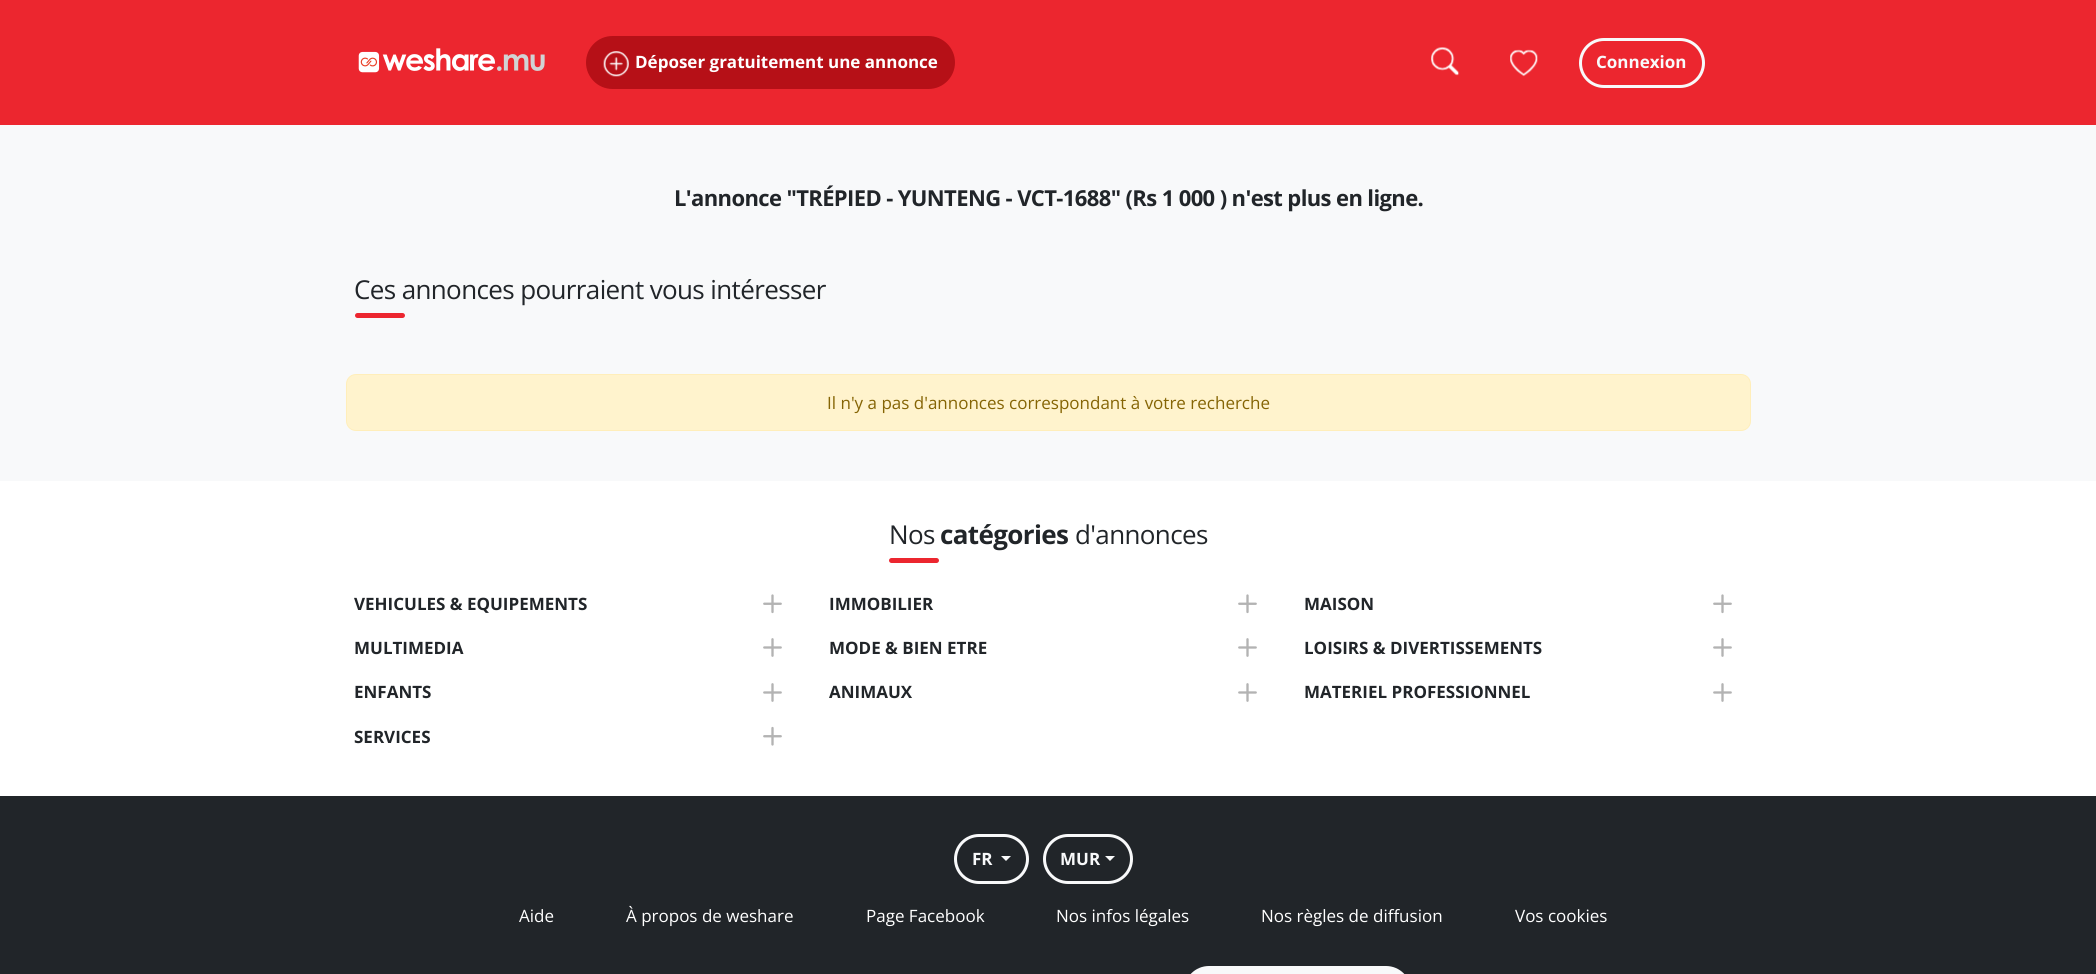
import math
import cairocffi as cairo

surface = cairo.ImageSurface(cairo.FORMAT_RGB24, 2096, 974)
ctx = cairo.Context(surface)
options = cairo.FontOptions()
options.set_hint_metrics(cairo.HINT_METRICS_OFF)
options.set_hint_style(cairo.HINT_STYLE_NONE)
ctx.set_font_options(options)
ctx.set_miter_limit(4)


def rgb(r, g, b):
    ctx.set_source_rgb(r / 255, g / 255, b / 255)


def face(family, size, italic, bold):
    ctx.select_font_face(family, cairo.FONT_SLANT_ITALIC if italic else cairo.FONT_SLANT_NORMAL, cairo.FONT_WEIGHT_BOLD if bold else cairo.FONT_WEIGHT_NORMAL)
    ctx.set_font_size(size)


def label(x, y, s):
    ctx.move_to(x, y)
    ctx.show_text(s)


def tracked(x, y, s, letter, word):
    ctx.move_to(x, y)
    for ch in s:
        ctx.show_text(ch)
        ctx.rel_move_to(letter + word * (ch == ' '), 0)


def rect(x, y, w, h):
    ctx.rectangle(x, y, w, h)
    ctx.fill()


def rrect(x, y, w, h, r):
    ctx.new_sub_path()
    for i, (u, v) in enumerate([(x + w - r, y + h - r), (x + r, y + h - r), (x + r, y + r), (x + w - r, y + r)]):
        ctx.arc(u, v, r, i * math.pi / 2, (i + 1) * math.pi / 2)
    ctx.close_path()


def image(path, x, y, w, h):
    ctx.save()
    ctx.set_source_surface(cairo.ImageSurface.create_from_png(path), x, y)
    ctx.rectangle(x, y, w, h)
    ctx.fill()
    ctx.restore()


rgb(248, 249, 250)
ctx.paint()
rgb(236, 38, 47)
rect(0, 0, 2096, 125)
image('image0.png', 358, 48, 187, 25)
rgb(182, 16, 23)
rrect(587.5, 37.5, 366, 50, 25)
ctx.fill_preserve()
ctx.set_line_width(3)
ctx.stroke()
image('image1.png', 603, 51, 26, 26)
face('Open Sans', 17, 0, 1)
rgb(255, 255, 255)
label(635, 68, 'Déposer gratuitement une annonce')
image('image2.png', 1431, 47, 29, 29)
image('image3.png', 1510, 49, 28, 28)
rrect(1580.5, 39.5, 123, 47, 23.5)
rgb(248, 249, 250)
ctx.stroke()
label(1596, 68, 'Connexion')
face('Open Sans', 22, 0, 1)
rgb(33, 37, 41)
tracked(674, 206, 'L\'annonce "TRÉPIED - YUNTENG - VCT-1688" (Rs 1 000 ) n\'est plus en ligne.', -0.62, 0)
face('Open Sans', 26, 0, 0)
tracked(354, 299, 'Ces annonces pourraient vous intéresser', -0.62, 0)
rgb(236, 38, 47)
rrect(355, 313, 50, 5, 2.5)
ctx.fill()
rgb(255, 243, 205)
rrect(346.5, 374.5, 1404, 56, 9.5)
ctx.fill_preserve()
rgb(255, 238, 186)
ctx.set_line_width(1)
ctx.stroke()
face('Open Sans', 17, 0, 0)
rgb(133, 100, 4)
label(827, 409, 'Il n\'y a pas d\'annonces correspondant à votre recherche')
rgb(255, 255, 255)
rect(0, 481, 2096, 315)
face('Open Sans', 26, 0, 0)
rgb(33, 37, 41)
tracked(889, 544, 'Nos', -0.62, 0)
face('Open Sans', 26, 0, 1)
tracked(940, 544, 'catégories', -0.62, 0)
face('Open Sans', 26, 0, 0)
tracked(1075, 544, 'd\'annonces', -0.62, 0)
rgb(236, 38, 47)
rrect(889, 558, 50, 5, 2.5)
ctx.fill()
face('Open Sans', 17, 0, 1)
rgb(33, 37, 41)
label(354, 610, 'VEHICULES & EQUIPEMENTS')
image('image4.png', 763, 594, 19, 20)
label(829, 610, 'IMMOBILIER')
image('image4.png', 1238, 594, 19, 20)
label(1304, 610, 'MAISON')
image('image4.png', 1713, 594, 19, 20)
label(354, 654, 'MULTIMEDIA')
image('image5.png', 763, 638, 19, 19)
label(829, 654, 'MODE & BIEN ETRE')
image('image5.png', 1238, 638, 19, 19)
label(1304, 654, 'LOISIRS & DIVERTISSEMENTS')
image('image5.png', 1713, 638, 19, 19)
label(354, 698, 'ENFANTS')
image('image5.png', 763, 683, 19, 19)
label(829, 698, 'ANIMAUX')
image('image5.png', 1238, 683, 19, 19)
label(1304, 698, 'MATERIEL PROFESSIONNEL')
image('image5.png', 1713, 683, 19, 19)
label(354, 743, 'SERVICES')
image('image6.png', 763, 726, 19, 20)
rect(0, 796, 2096, 178)
rrect(955.5, 835.5, 72, 47, 23.5)
rgb(248, 249, 250)
ctx.set_line_width(3)
ctx.stroke()
label(972, 865, 'FR')
ctx.new_path()
ctx.move_to(1001, 856)
ctx.line_to(1011, 856)
ctx.line_to(1006, 861)
ctx.close_path()
ctx.fill()
rrect(1044.5, 835.5, 87, 47, 23.5)
ctx.stroke()
label(1060, 865, 'MUR')
ctx.new_path()
ctx.move_to(1105, 856)
ctx.line_to(1115, 856)
ctx.line_to(1110, 861)
ctx.close_path()
ctx.fill()
face('Open Sans', 17, 0, 0)
rgb(255, 255, 255)
label(519, 922, 'Aide')
label(626, 922, 'À propos de weshare')
label(866, 922, 'Page Facebook')
label(1056, 922, 'Nos infos légales')
label(1261, 922, 'Nos règles de diffusion')
label(1515, 922, 'Vos cookies')
rgb(248, 249, 250)
rrect(1185.5, 967.5, 224, 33, 23.5)
ctx.fill_preserve()
ctx.stroke()
surface.write_to_png('render.png')
